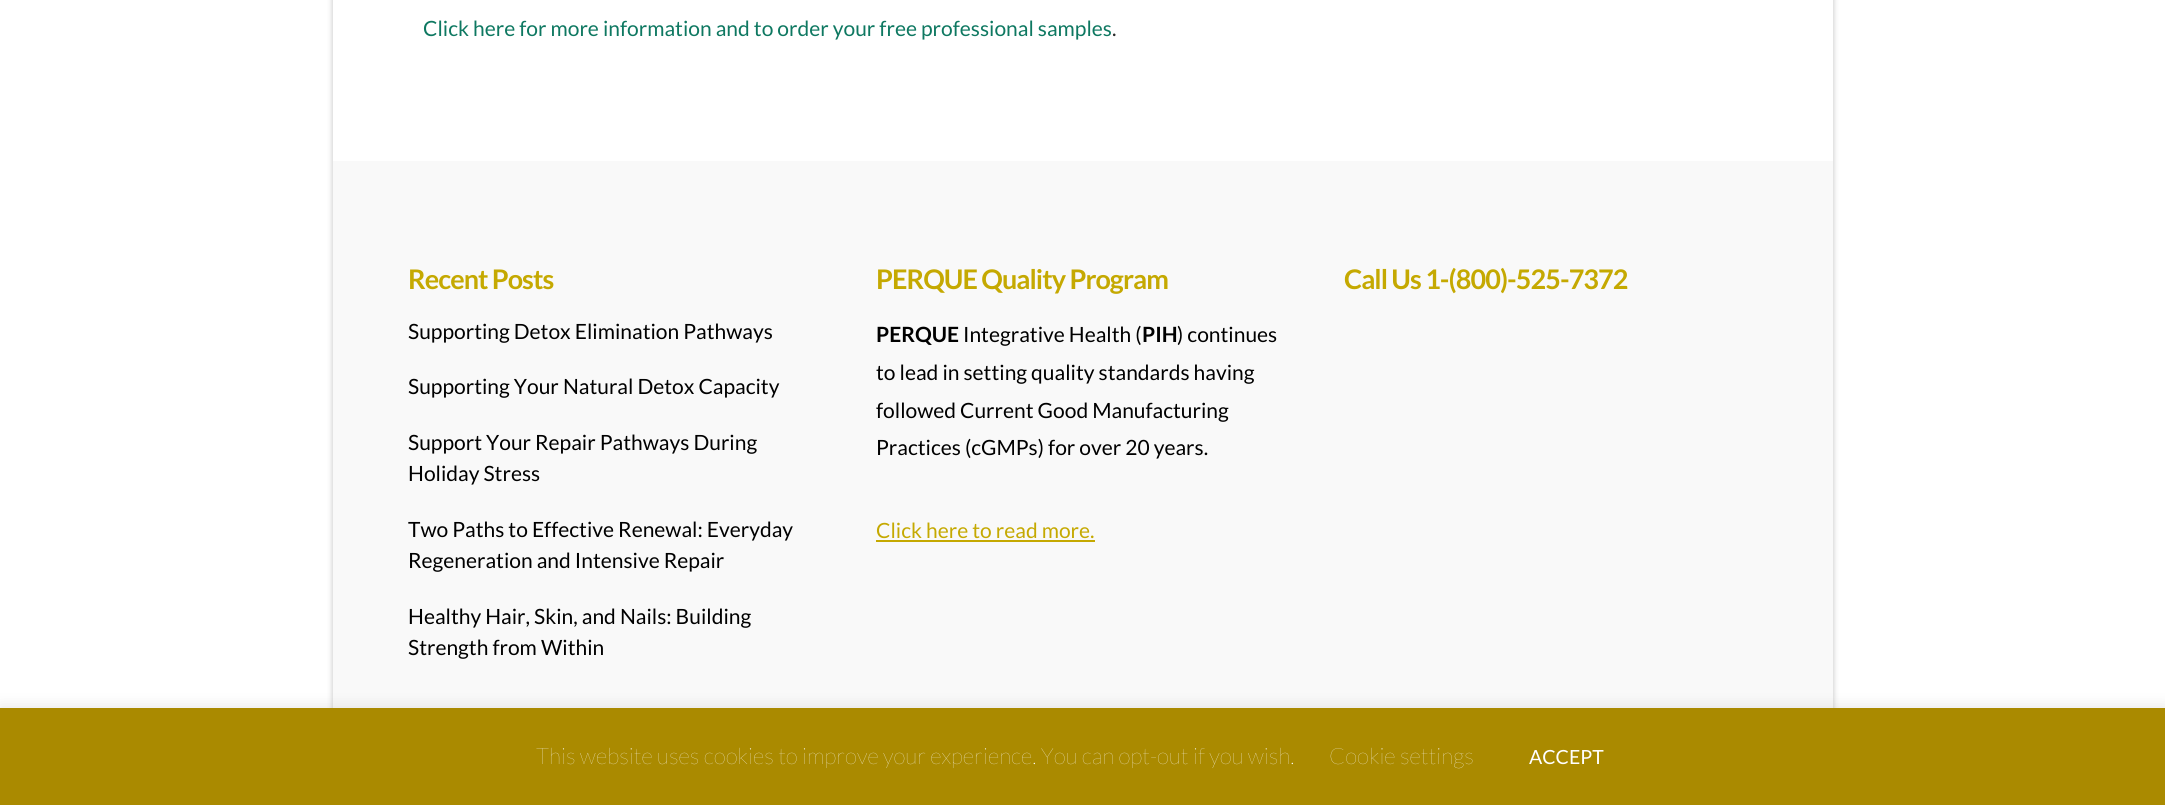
import math
import cairocffi as cairo

surface = cairo.ImageSurface(cairo.FORMAT_RGB24, 2165, 805)
ctx = cairo.Context(surface)
options = cairo.FontOptions()
options.set_hint_metrics(cairo.HINT_METRICS_OFF)
options.set_hint_style(cairo.HINT_STYLE_NONE)
ctx.set_font_options(options)
ctx.set_miter_limit(4)


def rgb(r, g, b):
    ctx.set_source_rgb(r / 255, g / 255, b / 255)


def face(family, size, italic, bold):
    ctx.select_font_face(family, cairo.FONT_SLANT_ITALIC if italic else cairo.FONT_SLANT_NORMAL, cairo.FONT_WEIGHT_BOLD if bold else cairo.FONT_WEIGHT_NORMAL)
    ctx.set_font_size(size)


def label(x, y, s):
    ctx.move_to(x, y)
    ctx.show_text(s)


def tracked(x, y, s, letter, word):
    ctx.move_to(x, y)
    for ch in s:
        ctx.show_text(ch)
        ctx.rel_move_to(letter + word * (ch == ' '), 0)


def rect(x, y, w, h):
    ctx.rectangle(x, y, w, h)
    ctx.fill()


def rrect(x, y, w, h, r):
    ctx.new_sub_path()
    for i, (u, v) in enumerate([(x + w - r, y + h - r), (x + r, y + h - r), (x + r, y + r), (x + w - r, y + r)]):
        ctx.arc(u, v, r, i * math.pi / 2, (i + 1) * math.pi / 2)
    ctx.close_path()


def soft_shadow(x, y, w, h, r, blur, alpha):
    ctx.push_group_with_content(cairo.CONTENT_ALPHA)
    ctx.set_operator(cairo.OPERATOR_SOURCE)
    for i in range(15, -16, -2):
        e = blur * i / 6
        if min(w, h) + 2 * e > 0:
            ctx.set_source_rgba(0, 0, 0, alpha * math.erfc((i - 1) / 8.5) / 2)
            rrect(x - e, y - e, w + 2 * e, h + 2 * e, max(0, min(r + e + blur * .6, min(w, h) / 2 + e)))
            ctx.fill()
    ctx.mask(ctx.pop_group())


rgb(255, 255, 255)
ctx.paint()
ctx.save()
ctx.set_fill_rule(cairo.FILL_RULE_EVEN_ODD)
ctx.new_path()
ctx.move_to(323, 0)
ctx.line_to(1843, 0)
ctx.line_to(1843, 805)
ctx.line_to(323, 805)
ctx.close_path()
ctx.move_to(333, -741)
ctx.line_to(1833, -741)
ctx.line_to(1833, 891)
ctx.line_to(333, 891)
ctx.close_path()
ctx.clip()
rgb(0, 0, 0)
soft_shadow(333, -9, 1500, 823, 0, 3, 0.25)
ctx.restore()
face('Lato', 21, 0, 0)
rgb(14, 120, 97)
label(423, 36, 'Click here for more information and to order your free professional samples')
rgb(43, 43, 43)
label(1112, 36, '.')
rgb(249, 249, 249)
rect(333, 161, 1500, 547)
face('Lato', 27, 0, 1)
rgb(197, 169, 1)
tracked(408, 289, 'Recent Posts', -0.95, 0)
face('Lato', 21, 0, 0)
rgb(0, 0, 0)
label(408, 339, 'Supporting Detox Elimination Pathways')
label(408, 394, 'Supporting Your Natural Detox Capacity')
label(408, 450, 'Support Your Repair Pathways During')
label(408, 481, 'Holiday Stress')
label(408, 537, 'Two Paths to Effective Renewal: Everyday')
label(408, 568, 'Regeneration and Intensive Repair')
label(408, 624, 'Healthy Hair, Skin, and Nails: Building')
label(408, 655, 'Strength from Within')
face('Lato', 27, 0, 1)
rgb(197, 169, 1)
tracked(876, 289, 'PERQUE Quality Program', -0.95, 0)
face('Lato', 21, 0, 1)
rgb(0, 0, 0)
label(876, 342, 'PERQUE')
face('Lato', 21, 0, 0)
label(963, 342, 'Integrative Health (')
face('Lato', 21, 0, 1)
label(1142, 342, 'PIH')
face('Lato', 21, 0, 0)
label(1177, 342, ') continues')
label(876, 380, 'to lead in setting quality standards having')
label(876, 418, 'followed Current Good Manufacturing')
label(876, 455, 'Practices (cGMPs) for over 20 years.')
rgb(197, 169, 1)
label(876, 538, 'Click here to read more.')
rect(876, 540, 219, 2)
face('Lato', 27, 0, 1)
tracked(1344, 289, 'Call Us 1-(800)-525-7372', -0.95, 0)
rgb(172, 171, 171)
soft_shadow(0, 707, 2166, 97, 0, 7.5, 0.3)
rgb(170, 138, 0)
rect(0, 708, 2165, 97)
face('Lato Thin', 22.5, 0, 0)
rgb(255, 255, 255)
label(536, 764, 'This website uses cookies to improve your experience. You can opt-out if you wish.')
label(1329, 764, 'Cookie settings')
face('Lato', 19.5, 0, 0)
label(1529, 764, 'ACCEPT')
surface.write_to_png('render.png')
